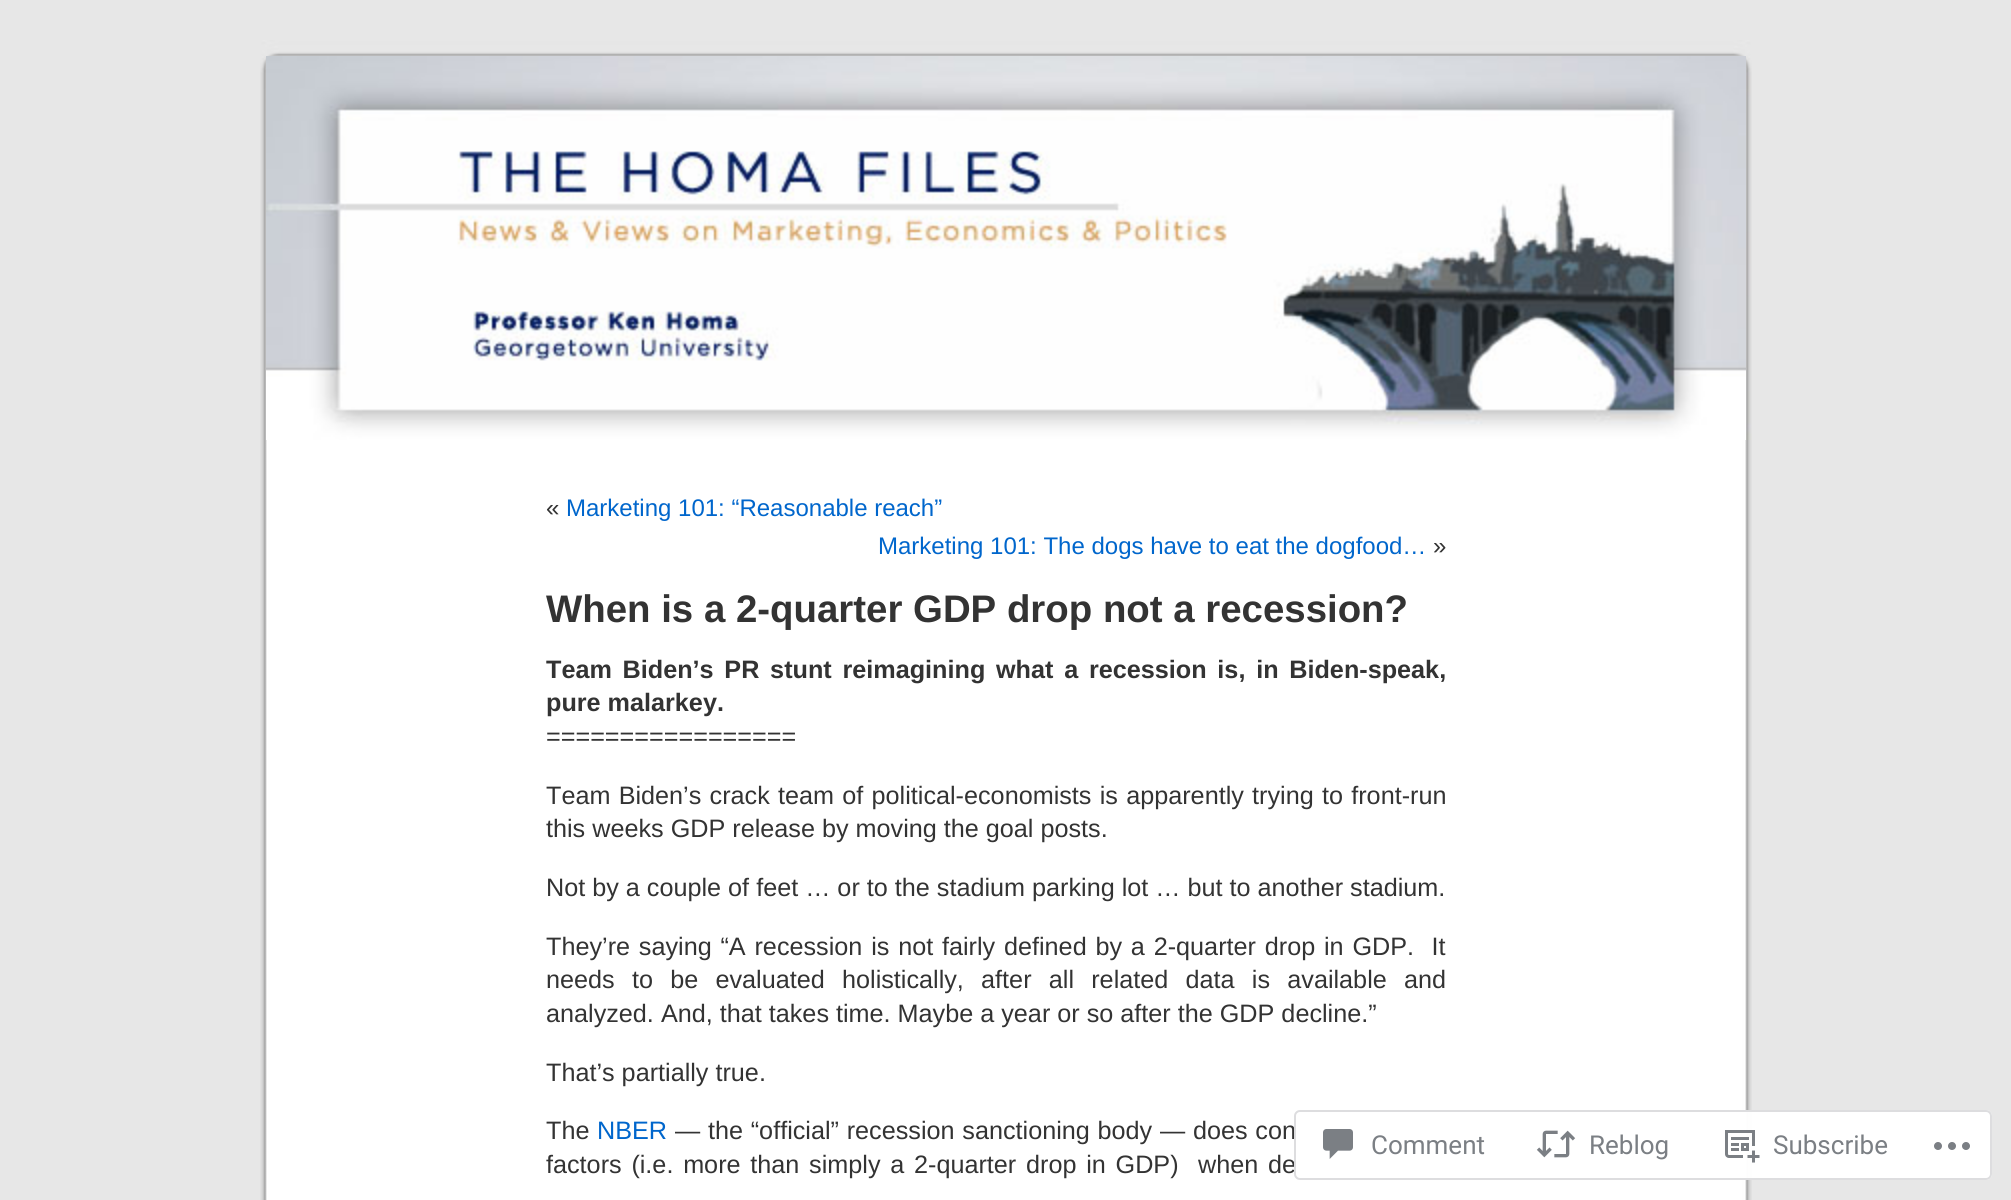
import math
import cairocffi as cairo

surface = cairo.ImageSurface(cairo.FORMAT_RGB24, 2011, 1200)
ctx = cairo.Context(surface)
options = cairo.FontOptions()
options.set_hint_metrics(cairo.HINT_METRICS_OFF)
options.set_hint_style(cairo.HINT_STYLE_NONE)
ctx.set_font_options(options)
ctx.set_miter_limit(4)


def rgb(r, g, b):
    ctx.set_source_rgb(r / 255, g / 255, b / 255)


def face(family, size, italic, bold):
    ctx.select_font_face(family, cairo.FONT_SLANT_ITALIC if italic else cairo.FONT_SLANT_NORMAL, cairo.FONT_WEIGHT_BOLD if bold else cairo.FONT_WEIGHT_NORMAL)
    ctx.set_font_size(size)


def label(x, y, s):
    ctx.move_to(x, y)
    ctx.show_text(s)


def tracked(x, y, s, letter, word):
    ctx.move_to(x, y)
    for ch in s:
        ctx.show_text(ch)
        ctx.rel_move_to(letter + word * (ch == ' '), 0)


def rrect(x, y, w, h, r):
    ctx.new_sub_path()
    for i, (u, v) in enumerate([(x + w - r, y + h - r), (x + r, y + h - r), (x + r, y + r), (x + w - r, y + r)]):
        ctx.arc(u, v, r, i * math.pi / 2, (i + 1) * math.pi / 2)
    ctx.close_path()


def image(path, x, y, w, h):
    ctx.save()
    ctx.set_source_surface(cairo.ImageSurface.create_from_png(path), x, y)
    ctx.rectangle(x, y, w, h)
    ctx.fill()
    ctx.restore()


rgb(231, 231, 231)
ctx.paint()
image('image0.png', 260, 440, 1492, 760)
image('image1.png', 260, 40, 1492, 400)
image('image2.png', 266, 56, 1480, 384)
face('Liberation Sans', 24, 0, 0)
rgb(51, 51, 51)
label(546, 516, '«')
rgb(0, 102, 204)
label(566, 516, 'Marketing 101: “Reasonable reach”')
label(878, 554, 'Marketing 101: The dogs have to eat the dogfood…')
rgb(51, 51, 51)
label(1433, 554, '»')
face('Liberation Sans', 38.4, 0, 1)
label(546, 622, 'When is a 2-quarter GDP drop not a recession?')
face('Liberation Sans', 25.2, 0, 1)
tracked(546, 678, 'Team Biden’s PR stunt reimagining what a recession is, in Biden-speak,', 0, 3.75)
label(546, 711, 'pure malarkey.')
face('Liberation Sans', 25.2, 0, 0)
label(546, 745, '=================')
tracked(546, 804, 'Team Biden’s crack team of political-economists is apparently trying to front-run', 0, 1.25)
label(546, 837, 'this weeks GDP release by moving the goal posts.')
label(546, 896, 'Not by a couple of feet … or to the stadium parking lot … but to another stadium.')
tracked(546, 955, 'They’re saying “A recession is not fairly defined by a 2-quarter drop in GDP.  It', 0, 1.8)
tracked(546, 988, 'needs to be evaluated holistically, after all related data is available and', 0, 10.25)
label(546, 1022, 'analyzed. And, that takes time. Maybe a year or so after the GDP decline.”')
label(546, 1081, 'That’s partially true.')
label(546, 1139, 'The')
rgb(0, 102, 204)
label(597, 1139, 'NBER')
rgb(51, 51, 51)
tracked(675, 1139, '— the “official” recession sanctioning body — does con', 0, 0.75)
tracked(546, 1173, 'factors (i.e. more than simply a 2-quarter drop in GDP)  when de', 0, 2.75)
ctx.set_source_rgba(1, 1, 1, 0.98)
rrect(1294, 1110, 698, 70, 6)
ctx.fill()
rrect(1295, 1111, 696, 68, 5)
ctx.set_source_rgba(0.863, 0.863, 0.871, 0.98)
ctx.stroke()
image('image3.png', 1323, 1129, 30, 30)
face('Roboto', 26, 0, 0)
rgb(123, 127, 132)
label(1371, 1154, 'Comment')
image('image4.png', 1536, 1130, 40, 28)
label(1589, 1154, 'Reblog')
image('image5.png', 1725, 1130, 35, 33)
label(1773, 1154, 'Subscribe')
image('image6.png', 1934, 1142, 36, 8)
surface.write_to_png('render.png')
